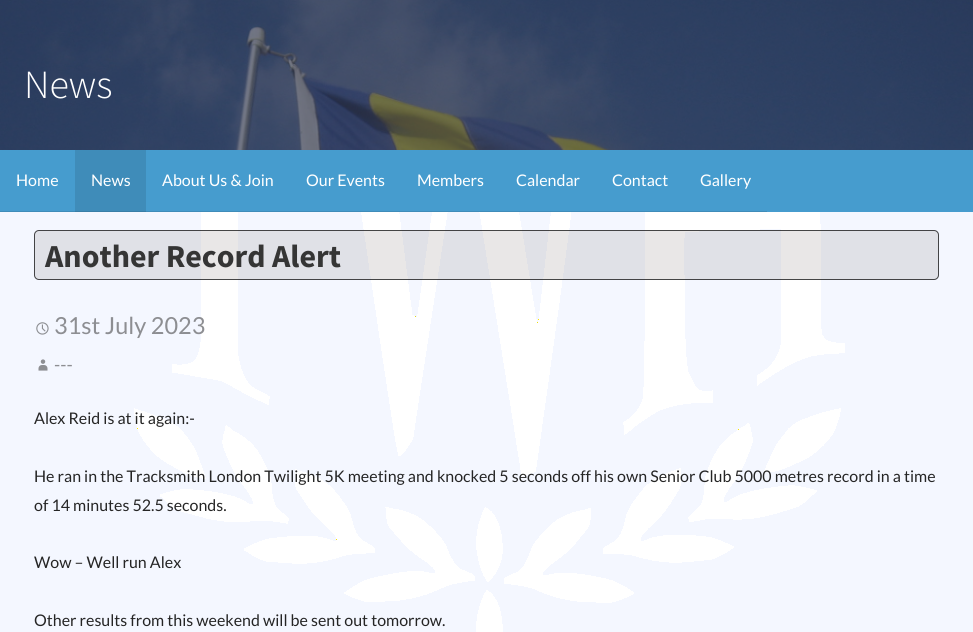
import math
import cairocffi as cairo

surface = cairo.ImageSurface(cairo.FORMAT_RGB24, 973, 632)
ctx = cairo.Context(surface)
options = cairo.FontOptions()
options.set_hint_metrics(cairo.HINT_METRICS_OFF)
options.set_hint_style(cairo.HINT_STYLE_NONE)
ctx.set_font_options(options)
ctx.set_miter_limit(4)


def rgb(r, g, b):
    ctx.set_source_rgb(r / 255, g / 255, b / 255)


def face(family, size, italic, bold):
    ctx.select_font_face(family, cairo.FONT_SLANT_ITALIC if italic else cairo.FONT_SLANT_NORMAL, cairo.FONT_WEIGHT_BOLD if bold else cairo.FONT_WEIGHT_NORMAL)
    ctx.set_font_size(size)


def label(x, y, s):
    ctx.move_to(x, y)
    ctx.show_text(s)


def rect(x, y, w, h):
    ctx.rectangle(x, y, w, h)
    ctx.fill()


def rrect(x, y, w, h, r):
    ctx.new_sub_path()
    for i, (u, v) in enumerate([(x + w - r, y + h - r), (x + r, y + h - r), (x + r, y + r), (x + w - r, y + r)]):
        ctx.arc(u, v, r, i * math.pi / 2, (i + 1) * math.pi / 2)
    ctx.close_path()


def image(path, x, y, w, h):
    ctx.save()
    ctx.set_source_surface(cairo.ImageSurface.create_from_png(path), x, y)
    ctx.rectangle(x, y, w, h)
    ctx.fill()
    ctx.restore()


rgb(244, 247, 255)
ctx.paint()
image('image0.png', 134, 212, 711, 420)
image('image1.png', 0, 0, 973, 150)
face('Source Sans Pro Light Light', 40, 0, 0)
rgb(255, 255, 255)
label(24, 98, 'News')
rgb(70, 156, 206)
rect(0, 150, 973, 62)
rgb(63, 140, 185)
rect(0, 211, 75, 1)
face('Lato', 16, 0, 0)
rgb(255, 255, 255)
label(16, 186, 'Home')
rgb(63, 140, 185)
rect(75, 150, 71, 61)
rgb(57, 126, 167)
rect(75, 211, 71, 1)
rgb(255, 255, 255)
label(91, 186, 'News')
rgb(63, 140, 185)
rect(146, 211, 621, 1)
rgb(255, 255, 255)
label(162, 186, 'About Us & Join')
label(306, 186, 'Our Events')
label(417, 186, 'Members')
label(516, 186, 'Calendar')
label(612, 186, 'Contact')
label(700, 186, 'Gallery')
ctx.set_source_rgba(0.58, 0.541, 0.541, 0.2)
rrect(34, 230, 905, 50, 5)
ctx.fill()
rrect(34.5, 230.5, 904, 49, 4.5)
ctx.set_source_rgba(0, 0, 0, 0.7)
ctx.set_line_width(1)
ctx.stroke()
face('Source Sans Pro', 32, 0, 1)
rgb(53, 53, 53)
label(45, 267, 'Another Record Alert')
image('image2.png', 36, 322, 13, 13)
face('Lato', 23.5, 0, 0)
rgb(141, 142, 146)
label(54, 334, '31st July 2023')
image('image3.png', 38, 359, 10, 12)
face('Lato', 18, 0, 0)
label(54, 371, '---')
face('Lato', 16, 0, 0)
rgb(37, 37, 37)
label(34, 424, 'Alex Reid is at it again:-')
label(34, 482, 'He ran in the Tracksmith London Twilight 5K meeting and knocked 5 seconds off his own Senior Club 5000 metres record in a time')
label(34, 511, 'of 14 minutes 52.5 seconds.')
label(34, 568, 'Wow – Well run Alex')
label(34, 626, 'Other results from this weekend will be sent out tomorrow.')
surface.write_to_png('render.png')
